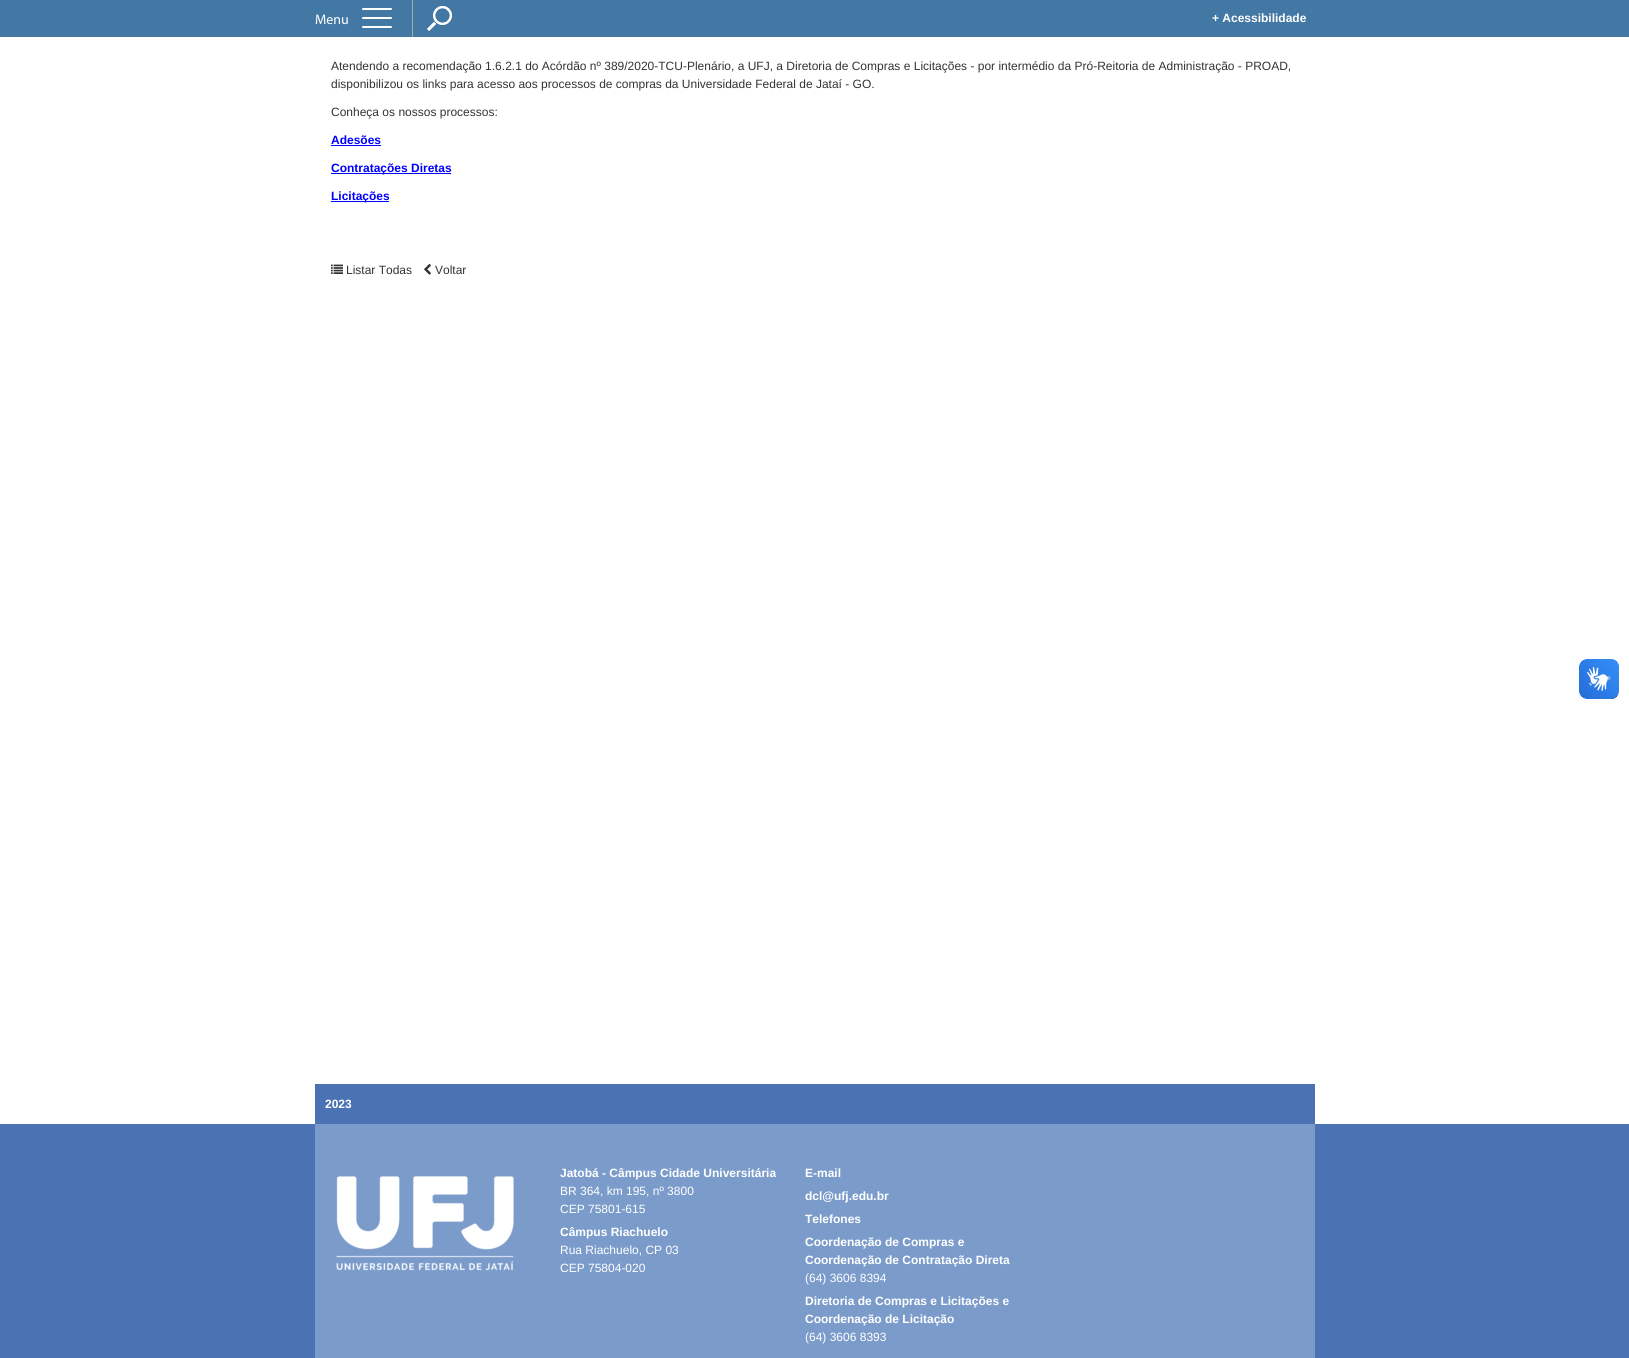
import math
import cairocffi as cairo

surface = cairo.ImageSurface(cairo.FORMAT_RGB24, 1629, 1358)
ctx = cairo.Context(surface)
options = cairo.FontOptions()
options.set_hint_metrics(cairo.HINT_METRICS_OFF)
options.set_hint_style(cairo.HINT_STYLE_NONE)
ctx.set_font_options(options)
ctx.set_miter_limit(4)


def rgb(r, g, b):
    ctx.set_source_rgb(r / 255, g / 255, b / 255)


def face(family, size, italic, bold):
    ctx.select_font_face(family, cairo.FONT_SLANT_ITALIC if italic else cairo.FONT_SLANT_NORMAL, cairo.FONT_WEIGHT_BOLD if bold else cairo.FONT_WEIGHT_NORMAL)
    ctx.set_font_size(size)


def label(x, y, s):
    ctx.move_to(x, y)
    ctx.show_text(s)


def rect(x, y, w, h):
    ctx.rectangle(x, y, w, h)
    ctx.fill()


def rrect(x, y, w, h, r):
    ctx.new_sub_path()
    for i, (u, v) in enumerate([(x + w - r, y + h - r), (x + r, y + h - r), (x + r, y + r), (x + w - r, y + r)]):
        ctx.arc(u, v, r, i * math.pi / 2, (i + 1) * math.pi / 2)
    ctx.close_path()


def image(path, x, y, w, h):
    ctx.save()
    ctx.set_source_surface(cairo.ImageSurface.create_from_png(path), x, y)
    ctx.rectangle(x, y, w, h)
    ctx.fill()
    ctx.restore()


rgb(255, 255, 255)
ctx.paint()
rgb(68, 120, 164)
rect(0, 0, 1629, 37)
rgb(170, 170, 170)
rect(412, 0, 1, 37)
face('Myriad', 14, 0, 0)
rgb(255, 255, 255)
label(315, 24, 'Menu')
rrect(362, 17, 30, 2, 1)
ctx.fill()
rrect(362, 8, 30, 2, 1)
ctx.fill()
rrect(362, 26, 30, 2, 1)
ctx.fill()
image('image0.png', 427, 6, 25, 25)
face('Liberation Sans', 12, 0, 1)
label(1212, 22, '+ Acessibilidade')
face('Liberation Sans', 12, 0, 0)
rgb(51, 51, 51)
label(331, 70, 'Atendendo a recomendação 1.6.2.1 do Acórdão nº 389/2020-TCU-Plenário, a UFJ, a Diretoria de Compras e Licitações - por intermédio da Pró-Reitoria de Administração - PROAD,')
label(331, 88, 'disponibilizou os links para acesso aos processos de compras da Universidade Federal de Jataí - GO.')
label(331, 116, 'Conheça os nossos processos:')
face('Liberation Sans', 12, 0, 1)
rgb(0, 0, 255)
label(331, 144, 'Adesões')
rect(331, 145, 50, 1)
rect(331, 173, 120, 1)
label(331, 172, 'Contratações Diretas')
rect(331, 201, 58, 1)
label(331, 200, 'Licitações')
image('image1.png', 331, 264, 12, 10)
face('Liberation Sans', 12, 0, 0)
rgb(51, 51, 51)
label(346, 274, 'Listar Todas')
image('image2.png', 424, 263, 7, 12)
label(435, 274, 'Voltar')
image('image3.png', 1579, 659, 40, 40)
image('image4.png', 1579, 659, 40, 40)
rgb(75, 115, 179)
rect(315, 1084, 1000, 40)
face('Liberation Sans', 12, 0, 1)
rgb(255, 255, 255)
label(325, 1108, '2023')
rgb(75, 115, 179)
rect(0, 1124, 1629, 234)
rgb(123, 156, 203)
rect(315, 1124, 1000, 234)
image('image5.png', 336, 1176, 178, 95)
rgb(255, 255, 255)
label(560, 1177, 'Jatobá - Câmpus Cidade Universitária')
face('Liberation Sans', 12, 0, 0)
label(560, 1195, 'BR 364, km 195, nº 3800')
label(560, 1213, 'CEP 75801-615')
face('Liberation Sans', 12, 0, 1)
label(560, 1236, 'Câmpus Riachuelo')
face('Liberation Sans', 12, 0, 0)
label(560, 1254, 'Rua Riachuelo, CP 03')
label(560, 1272, 'CEP 75804-020')
face('Liberation Sans', 12, 0, 1)
label(805, 1177, 'E-mail')
label(805, 1200, 'dcl@ufj.edu.br')
label(805, 1223, 'Telefones')
label(805, 1246, 'Coordenação de Compras e')
label(805, 1264, 'Coordenação de Contratação Direta')
face('Liberation Sans', 12, 0, 0)
label(805, 1282, '(64) 3606 8394')
face('Liberation Sans', 12, 0, 1)
label(805, 1305, 'Diretoria de Compras e Licitações e')
label(805, 1323, 'Coordenação de Licitação')
face('Liberation Sans', 12, 0, 0)
label(805, 1341, '(64) 3606 8393')
surface.write_to_png('render.png')
